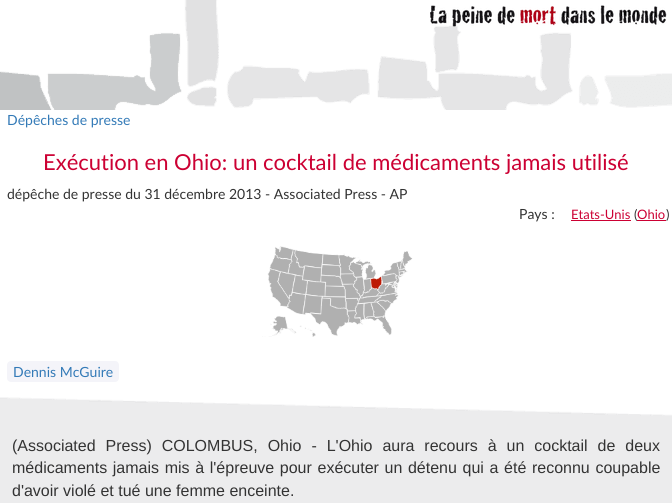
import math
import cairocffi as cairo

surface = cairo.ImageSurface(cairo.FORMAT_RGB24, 672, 503)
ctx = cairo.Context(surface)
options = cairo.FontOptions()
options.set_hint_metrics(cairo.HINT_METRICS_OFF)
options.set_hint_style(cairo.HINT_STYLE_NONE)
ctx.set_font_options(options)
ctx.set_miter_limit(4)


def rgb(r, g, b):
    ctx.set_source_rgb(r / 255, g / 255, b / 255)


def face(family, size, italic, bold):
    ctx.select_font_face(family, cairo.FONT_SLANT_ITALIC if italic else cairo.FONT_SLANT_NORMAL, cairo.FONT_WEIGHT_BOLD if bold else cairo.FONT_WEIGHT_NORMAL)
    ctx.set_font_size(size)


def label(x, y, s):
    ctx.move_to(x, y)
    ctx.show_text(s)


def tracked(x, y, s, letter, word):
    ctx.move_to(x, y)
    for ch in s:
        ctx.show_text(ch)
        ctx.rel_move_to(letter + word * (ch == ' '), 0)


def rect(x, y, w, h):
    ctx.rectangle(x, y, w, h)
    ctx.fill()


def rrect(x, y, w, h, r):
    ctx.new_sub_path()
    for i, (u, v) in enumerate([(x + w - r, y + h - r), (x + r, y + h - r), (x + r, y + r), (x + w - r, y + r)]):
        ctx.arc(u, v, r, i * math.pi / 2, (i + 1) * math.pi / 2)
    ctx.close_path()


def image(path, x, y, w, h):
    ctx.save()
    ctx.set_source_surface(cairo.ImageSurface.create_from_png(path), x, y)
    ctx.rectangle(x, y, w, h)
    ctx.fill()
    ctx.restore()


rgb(255, 255, 255)
ctx.paint()
image('image0.png', 0, 0, 672, 110)
image('image1.png', 430, 5, 237, 22)
face('Lato', 14, 0, 0)
rgb(51, 122, 183)
label(7, 125, 'Dépêches de presse')
face('Lato', 22, 0, 0)
rgb(204, 0, 51)
label(43, 170, 'Exécution en Ohio: un cocktail de médicaments jamais utilisé')
face('Lato', 14, 0, 0)
rgb(51, 51, 51)
label(7, 199, 'dépêche de presse du 31 décembre 2013 - Associated Press - AP')
label(519, 219, 'Pays :')
face('Lato', 13, 0, 0)
rgb(204, 0, 51)
label(571, 219, 'Etats-Unis')
rect(571, 220, 60, 1)
rgb(51, 51, 51)
label(634, 219, '(')
rgb(204, 0, 51)
rect(637, 220, 29, 1)
label(637, 219, 'Ohio')
rgb(51, 51, 51)
label(666, 219, ')')
image('image2.png', 262, 246, 151, 91)
rgb(244, 244, 249)
rrect(7, 361, 112, 21, 4)
ctx.fill()
face('Lato', 14, 0, 0)
rgb(51, 122, 183)
label(13, 377, 'Dennis McGuire')
rgb(236, 236, 237)
rect(0, 435, 672, 68)
image('image3.png', 0, 397, 672, 38)
face('Liberation Sans', 16, 0, 0)
rgb(51, 51, 51)
tracked(12, 451, '(Associated Press) COLOMBUS, Ohio - L\'Ohio aura recours à un cocktail de deux', 0, 5.5)
tracked(12, 473, 'médicaments jamais mis à l\'épreuve pour exécuter un détenu qui a été reconnu coupable', 0, 1.2)
label(12, 496, 'd\'avoir violé et tué une femme enceinte.')
surface.write_to_png('render.png')
